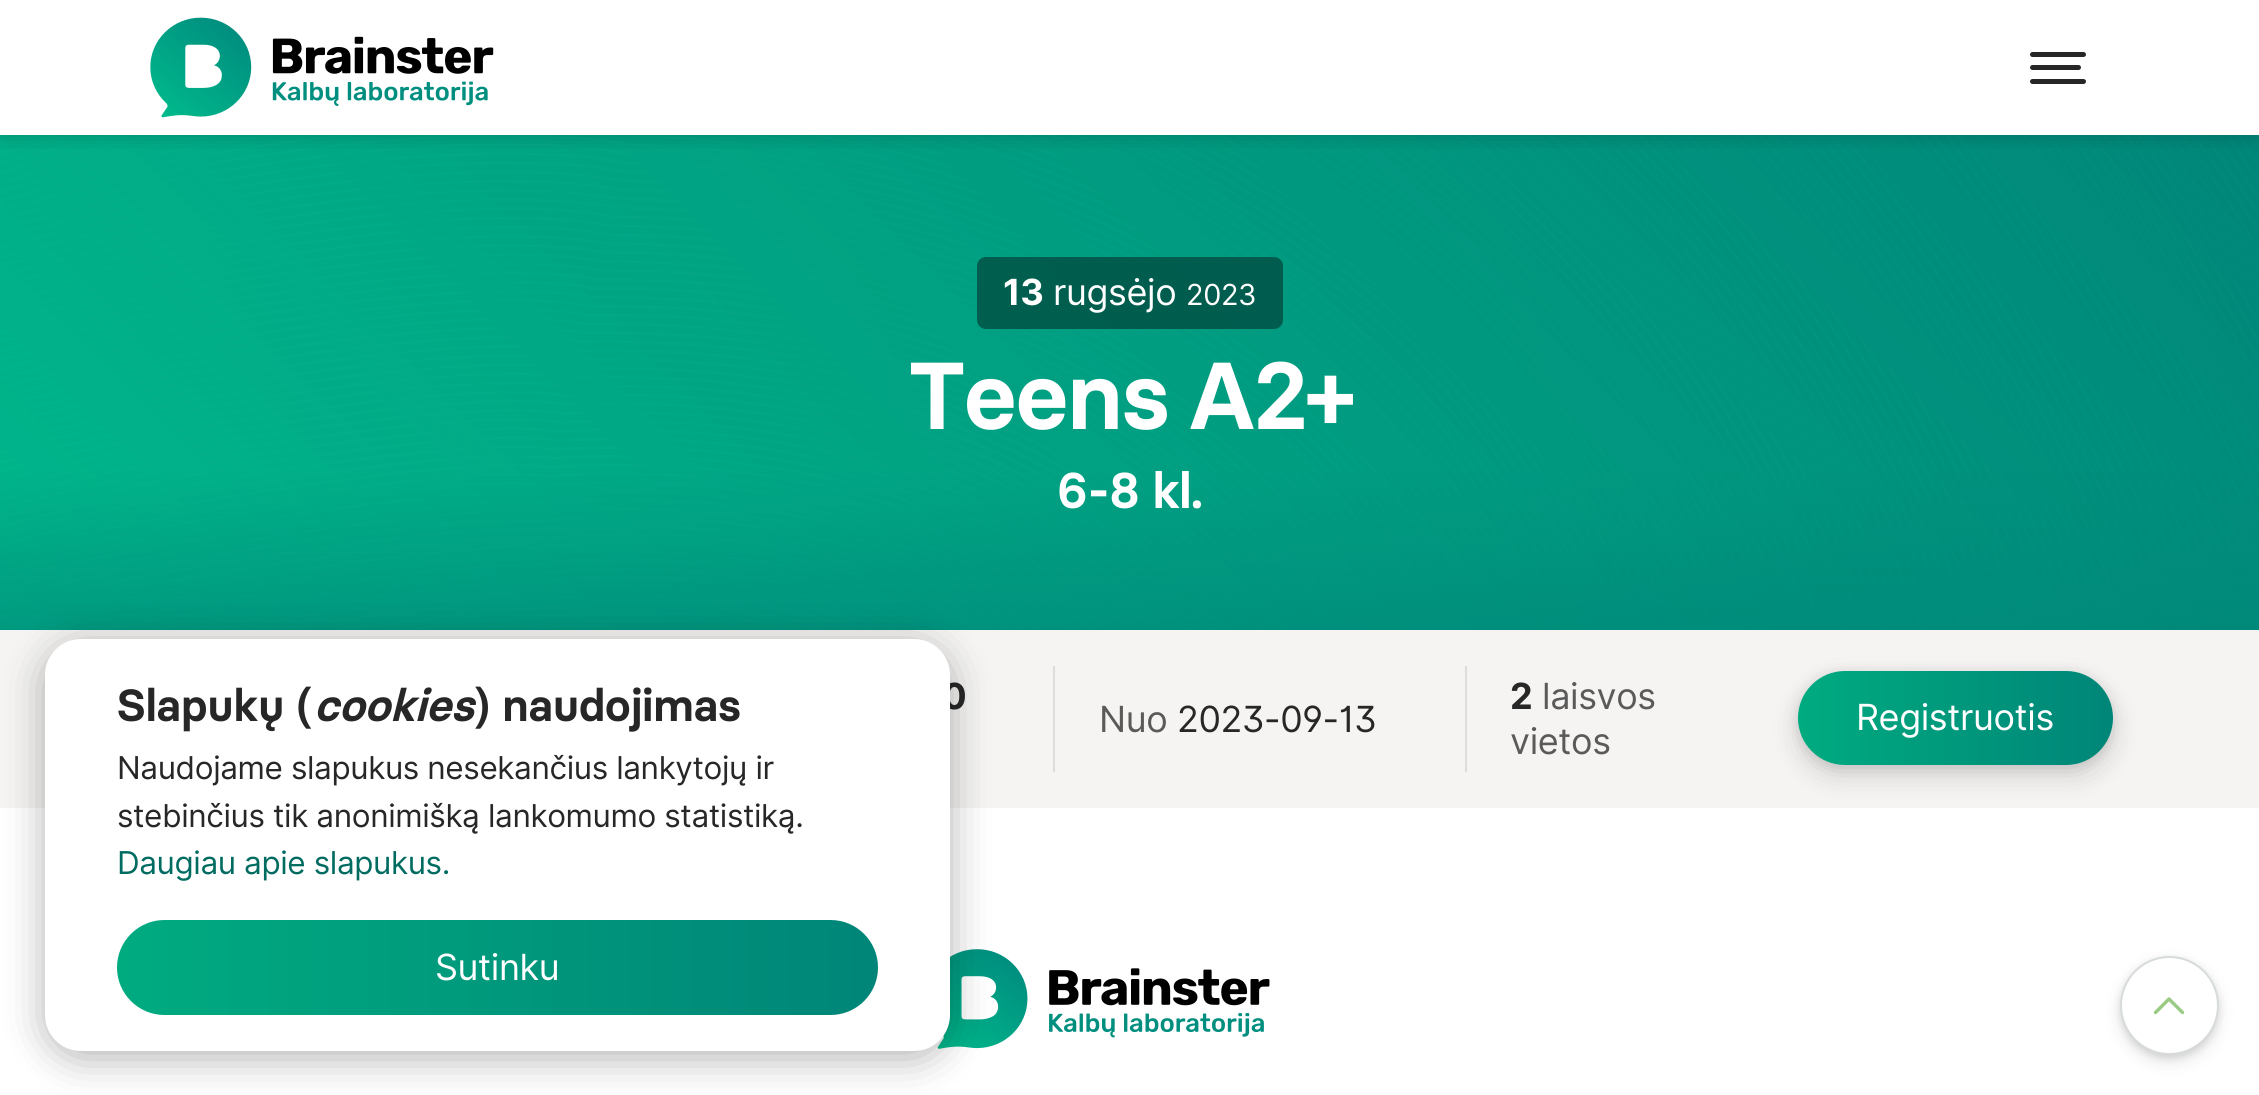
import math
import cairocffi as cairo

surface = cairo.ImageSurface(cairo.FORMAT_RGB24, 2259, 1095)
ctx = cairo.Context(surface)
options = cairo.FontOptions()
options.set_hint_metrics(cairo.HINT_METRICS_OFF)
options.set_hint_style(cairo.HINT_STYLE_NONE)
ctx.set_font_options(options)
ctx.set_miter_limit(4)


def rgb(r, g, b):
    ctx.set_source_rgb(r / 255, g / 255, b / 255)


def face(family, size, italic, bold):
    ctx.select_font_face(family, cairo.FONT_SLANT_ITALIC if italic else cairo.FONT_SLANT_NORMAL, cairo.FONT_WEIGHT_BOLD if bold else cairo.FONT_WEIGHT_NORMAL)
    ctx.set_font_size(size)


def label(x, y, s):
    ctx.move_to(x, y)
    ctx.show_text(s)


def tracked(x, y, s, letter, word):
    ctx.move_to(x, y)
    for ch in s:
        ctx.show_text(ch)
        ctx.rel_move_to(letter + word * (ch == ' '), 0)


def rect(x, y, w, h):
    ctx.rectangle(x, y, w, h)
    ctx.fill()


def rrect(x, y, w, h, r):
    ctx.new_sub_path()
    for i, (u, v) in enumerate([(x + w - r, y + h - r), (x + r, y + h - r), (x + r, y + r), (x + w - r, y + r)]):
        ctx.arc(u, v, r, i * math.pi / 2, (i + 1) * math.pi / 2)
    ctx.close_path()


def soft_shadow(x, y, w, h, r, blur, alpha):
    ctx.push_group_with_content(cairo.CONTENT_ALPHA)
    ctx.set_operator(cairo.OPERATOR_SOURCE)
    for i in range(15, -16, -2):
        e = blur * i / 6
        if min(w, h) + 2 * e > 0:
            ctx.set_source_rgba(0, 0, 0, alpha * math.erfc((i - 1) / 8.5) / 2)
            rrect(x - e, y - e, w + 2 * e, h + 2 * e, max(0, min(r + e + blur * .6, min(w, h) / 2 + e)))
            ctx.fill()
    ctx.mask(ctx.pop_group())


def image(path, x, y, w, h):
    ctx.save()
    ctx.set_source_surface(cairo.ImageSurface.create_from_png(path), x, y)
    ctx.rectangle(x, y, w, h)
    ctx.fill()
    ctx.restore()


rgb(255, 255, 255)
ctx.paint()
image('image1.png', 0, 135, 2259, 495)
ctx.save()
ctx.rectangle(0, 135, 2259, 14)
ctx.clip()
rgb(0, 0, 0)
soft_shadow(0, 0, 2259, 135, 0, 11, 0.2)
ctx.restore()
image('image0.png', 150, 17, 344, 101)
rgb(39, 39, 39)
rrect(2030, 52, 56, 5, 2.5)
ctx.fill()
rrect(2030, 65, 51, 5, 2.5)
ctx.fill()
rrect(2030, 79, 56, 5, 2.5)
ctx.fill()
ctx.set_source_rgba(0, 0.122, 0.11, 0.5)
rrect(977, 257, 306, 72, 9)
ctx.fill()
face('Inter', 36, 0, 1)
rgb(255, 255, 255)
tracked(1003, 305, '13', -0.4, 0)
face('Inter', 36, 0, 0)
tracked(1053, 305, 'rugsėjo', -0.4, 0)
face('Inter', 29, 0, 0)
tracked(1186, 305, '2023', -0.4, 0)
face('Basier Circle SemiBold', 94.75, 0, 0)
tracked(909, 429, 'Teens A2+', -1, -6)
face('Basier Circle SemiBold', 50, 0, 0)
tracked(1057, 508, '6-8 kl.', -0.75, 0)
rgb(245, 244, 243)
rect(0, 630, 2259, 178)
face('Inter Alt', 36, 0, 1)
rgb(39, 39, 39)
tracked(942, 709, '0', -0.4, 0)
rgb(221, 220, 219)
rect(1053, 666, 2, 106)
face('Inter', 36, 0, 0)
rgb(91, 90, 90)
tracked(1099, 732, 'Nuo', -0.4, 0)
face('Inter Alt', 36, 0, 0)
rgb(39, 39, 39)
tracked(1177, 732, '2023-09-13', -0.4, 0)
rgb(221, 220, 219)
rect(1465, 666, 2, 106)
face('Inter', 36, 0, 1)
rgb(39, 39, 39)
tracked(1510, 709, '2', -0.4, 0)
face('Inter', 36, 0, 0)
rgb(91, 90, 90)
tracked(1542, 709, 'laisvos', -0.4, 0)
tracked(1510, 754, 'vietos', -0.4, 0)
rgb(0, 0, 0)
soft_shadow(1798, 673, 315, 94, 47, 5.5, 0.1)
soft_shadow(1798, 682, 315, 94, 47, 13.5, 0.15)
gradient = cairo.LinearGradient(1798, 718, 2113, 718)
gradient.add_color_stop_rgba(0, 0, 0.671, 0.502, 1)
gradient.add_color_stop_rgba(1, 0, 0.522, 0.471, 1)
ctx.set_source(gradient)
rrect(1798, 671, 315, 94, 47)
ctx.fill()
rgb(255, 255, 255)
tracked(1856, 730, 'Registruotis', -0.4, 0)
image('image2.png', 937, 949, 333, 100)
rgb(0, 0, 0)
soft_shadow(45, 646, 905, 412, 36, 20, 0.3)
rgb(255, 255, 255)
rrect(45, 639, 905, 412, 36)
ctx.fill()
face('Basier Circle SemiBold', 45, 0, 0)
rgb(39, 39, 39)
label(117, 721, 'Slapukų (')
face('Basier Circle SemiBold', 45, 1, 0)
label(314, 721, 'cookies')
face('Basier Circle SemiBold', 45, 0, 0)
label(473, 721, ') naudojimas')
face('Inter', 31.5, 0, 0)
tracked(117, 779, 'Naudojame slapukus nesekančius lankytojų ir', -0.4, 0)
tracked(117, 827, 'stebinčius tik anonimišką lankomumo statistiką.', -0.4, 0)
rgb(0, 108, 97)
tracked(117, 874, 'Daugiau apie slapukus.', -0.4, 0)
gradient = cairo.LinearGradient(117, 968, 878, 968)
gradient.add_color_stop_rgba(0, 0, 0.671, 0.502, 1)
gradient.add_color_stop_rgba(1, 0, 0.522, 0.471, 1)
ctx.set_source(gradient)
rrect(117, 920, 761, 95, 47.5)
ctx.fill()
face('Inter', 36, 0, 0)
rgb(255, 255, 255)
tracked(435, 980, 'Sutinku', -0.4, 0)
rgb(0, 0, 0)
soft_shadow(2120, 959, 99, 99, 49.5, 3.5, 0.1)
soft_shadow(2120, 963, 99, 99, 49.5, 8, 0.1)
rgb(255, 255, 255)
ctx.arc(2169.5, 1005.5, 48.5, 0, 2 * math.pi)
ctx.fill_preserve()
rgb(215, 219, 218)
ctx.stroke()
ctx.new_path()
ctx.move_to(2182.5, 1012.5)
ctx.line_to(2169, 999)
ctx.line_to(2155.5, 1012.5)
rgb(154, 203, 133)
ctx.set_line_width(3.4)
ctx.set_line_cap(cairo.LINE_CAP_ROUND)
ctx.set_line_join(cairo.LINE_JOIN_ROUND)
ctx.stroke()
surface.write_to_png('render.png')
